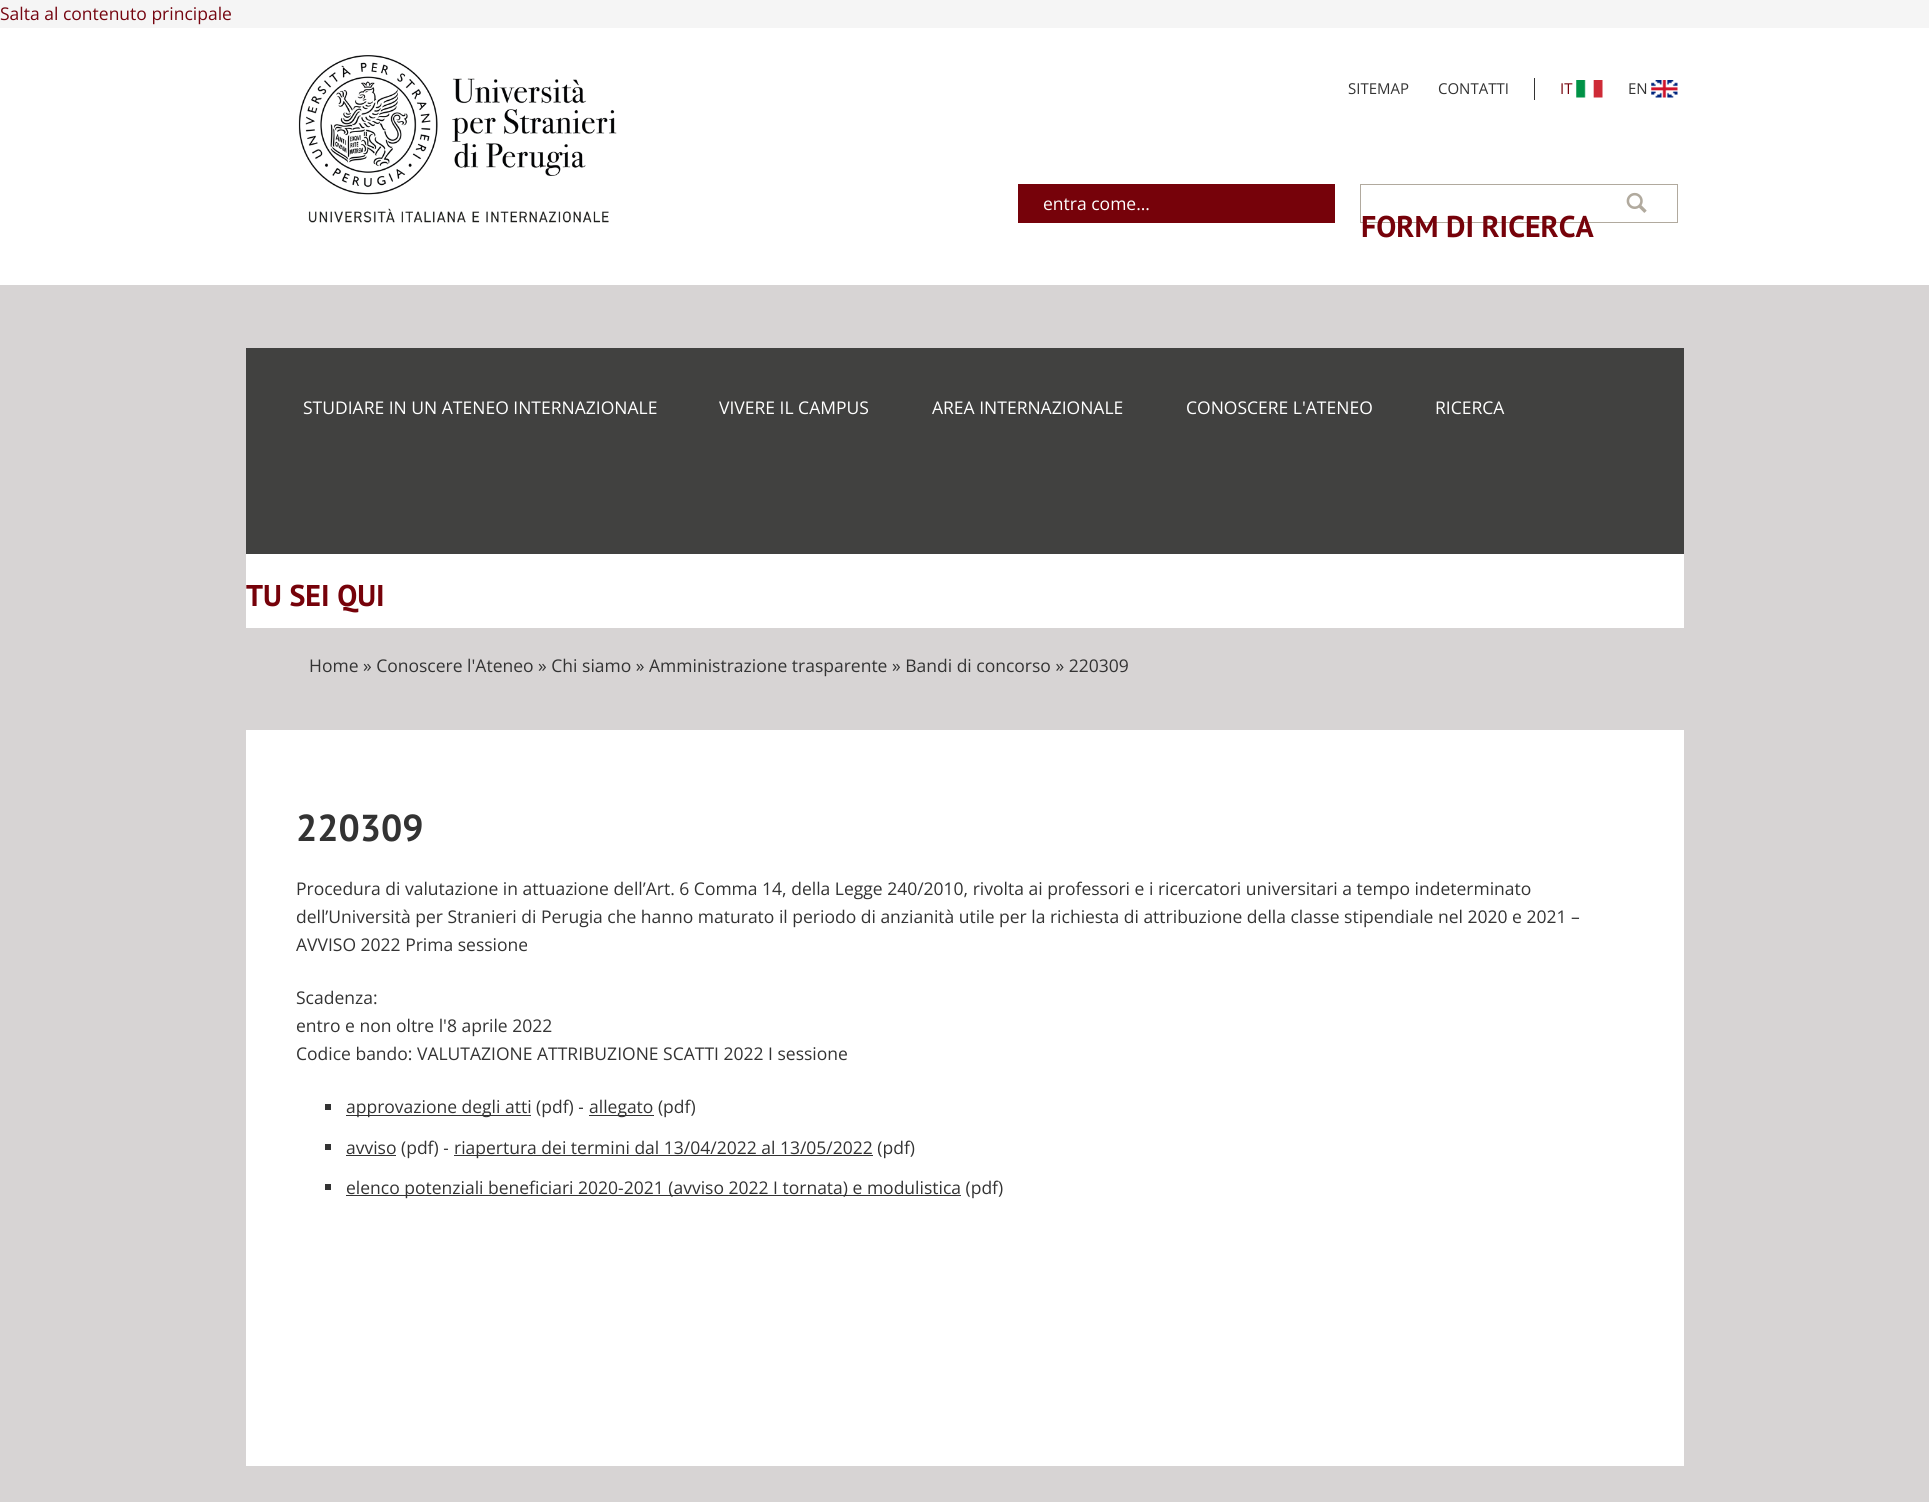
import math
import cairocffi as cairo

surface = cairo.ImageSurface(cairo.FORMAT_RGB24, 1929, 1502)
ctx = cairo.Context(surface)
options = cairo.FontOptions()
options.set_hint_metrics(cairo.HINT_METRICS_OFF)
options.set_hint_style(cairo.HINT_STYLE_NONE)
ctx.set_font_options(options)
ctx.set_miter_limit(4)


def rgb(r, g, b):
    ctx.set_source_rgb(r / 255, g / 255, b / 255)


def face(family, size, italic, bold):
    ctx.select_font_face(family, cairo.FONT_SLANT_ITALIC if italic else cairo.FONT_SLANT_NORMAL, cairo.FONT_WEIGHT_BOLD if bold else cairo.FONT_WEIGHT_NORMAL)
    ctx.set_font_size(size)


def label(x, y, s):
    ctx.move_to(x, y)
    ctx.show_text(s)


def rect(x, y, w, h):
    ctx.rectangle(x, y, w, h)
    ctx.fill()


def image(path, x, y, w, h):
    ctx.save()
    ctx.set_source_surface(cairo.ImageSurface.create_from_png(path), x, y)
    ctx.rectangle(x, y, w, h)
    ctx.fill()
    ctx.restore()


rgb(245, 245, 245)
ctx.paint()
face('Open Sans', 17.5, 0, 0)
rgb(117, 5, 16)
label(0, 20, 'Salta al contenuto principale')
rgb(255, 255, 255)
rect(0, 28, 1929, 257)
image('image0.png', 298, 55, 319, 168)
rgb(51, 51, 51)
rect(1534, 78, 1, 22)
face('Open Sans', 15, 0, 0)
label(1348, 94, 'SITEMAP')
label(1438, 94, 'CONTATTI')
rgb(118, 2, 10)
label(1560, 94, 'IT')
image('image1.png', 1576, 80, 27, 18)
rgb(51, 51, 51)
label(1628, 94, 'EN')
image('image2.png', 1651, 80, 27, 18)
rgb(118, 2, 10)
rect(1018, 184, 317, 39)
face('Open Sans', 17.5, 0, 0)
rgb(255, 255, 255)
label(1043, 210, 'entra come...')
ctx.rectangle(1360.5, 184.5, 317, 38)
rgb(177, 170, 158)
ctx.set_line_width(1)
ctx.stroke()
image('image3.png', 1626, 192, 21, 21)
face('PT Sans', 30, 0, 1)
rgb(118, 2, 10)
label(1361, 237, 'FORM DI RICERCA')
rgb(215, 212, 212)
rect(0, 285, 1929, 1217)
rgb(65, 65, 64)
rect(246, 348, 1438, 206)
face('Open Sans', 17.5, 0, 0)
rgb(255, 255, 255)
label(303, 414, 'STUDIARE IN UN ATENEO INTERNAZIONALE')
label(719, 414, 'VIVERE IL CAMPUS')
label(932, 414, 'AREA INTERNAZIONALE')
label(1186, 414, 'CONOSCERE L\'ATENEO')
label(1435, 414, 'RICERCA')
rect(246, 554, 1438, 912)
face('PT Sans', 30, 0, 1)
rgb(118, 2, 10)
label(246, 606, 'TU SEI QUI')
rgb(215, 212, 212)
rect(246, 628, 1438, 102)
face('Open Sans', 17.5, 0, 0)
rgb(51, 51, 51)
label(309, 672, 'Home » Conoscere l\'Ateneo » Chi siamo » Amministrazione trasparente » Bandi di concorso » 220309')
face('PT Sans', 37.5, 0, 1)
label(296, 841, '220309')
face('Open Sans', 17.5, 0, 0)
label(296, 895, 'Procedura di valutazione in attuazione dell’Art. 6 Comma 14, della Legge 240/2010, rivolta ai professori e i ricercatori universitari a tempo indeterminato')
label(296, 923, 'dell’Università per Stranieri di Perugia che hanno maturato il periodo di anzianità utile per la richiesta di attribuzione della classe stipendiale nel 2020 e 2021 –')
label(296, 951, 'AVVISO 2022 Prima sessione')
label(296, 1004, 'Scadenza:')
label(296, 1032, 'entro e non oltre l\'8 aprile 2022')
label(296, 1060, 'Codice bando: VALUTAZIONE ATTRIBUZIONE SCATTI 2022 I sessione')
rect(325, 1104, 6, 6)
rect(346, 1115, 185, 1)
label(346, 1113, 'approvazione degli atti (pdf) -')
rect(589, 1115, 65, 1)
label(589, 1113, 'allegato (pdf)')
rect(325, 1144, 6, 6)
rect(346, 1155, 50, 1)
label(346, 1154, 'avviso (pdf) -')
rect(454, 1155, 419, 1)
label(454, 1154, 'riapertura dei termini dal 13/04/2022 al 13/05/2022 (pdf)')
rect(325, 1184, 6, 6)
rect(346, 1195, 615, 1)
label(346, 1194, 'elenco potenziali beneficiari 2020-2021 (avviso 2022 I tornata) e modulistica (pdf)')
surface.write_to_png('render.png')
